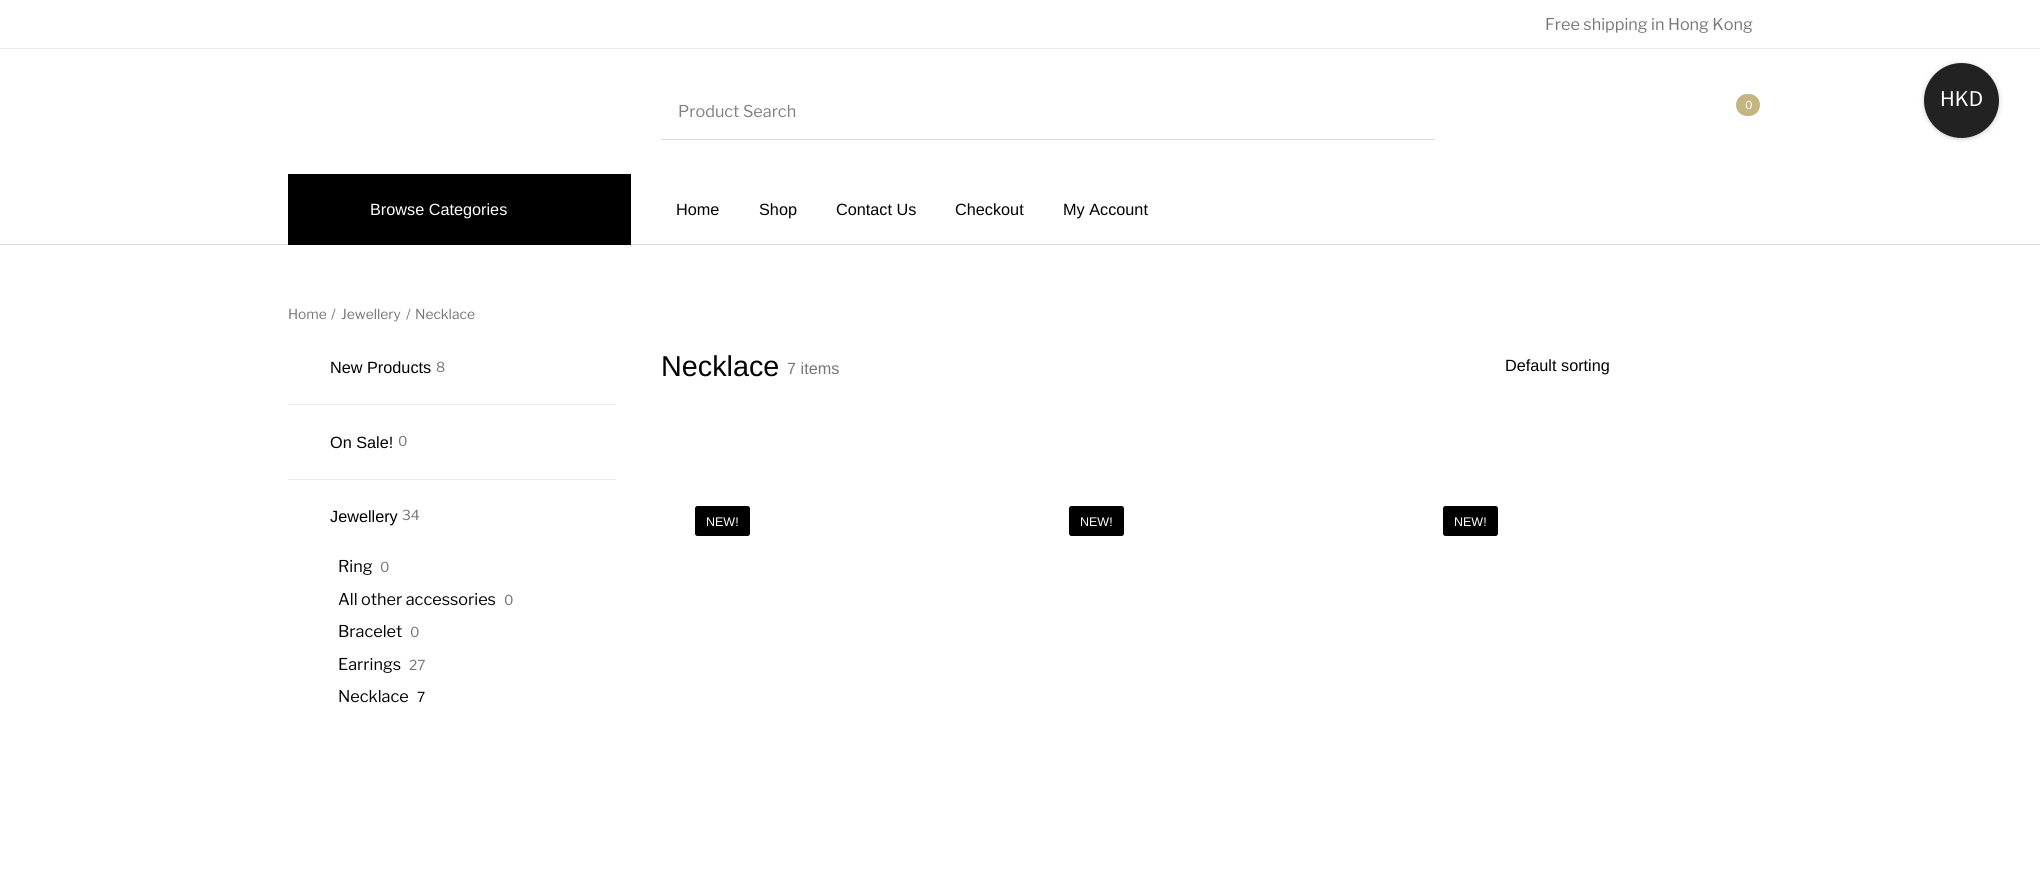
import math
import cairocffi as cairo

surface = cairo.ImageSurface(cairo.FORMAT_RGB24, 2040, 873)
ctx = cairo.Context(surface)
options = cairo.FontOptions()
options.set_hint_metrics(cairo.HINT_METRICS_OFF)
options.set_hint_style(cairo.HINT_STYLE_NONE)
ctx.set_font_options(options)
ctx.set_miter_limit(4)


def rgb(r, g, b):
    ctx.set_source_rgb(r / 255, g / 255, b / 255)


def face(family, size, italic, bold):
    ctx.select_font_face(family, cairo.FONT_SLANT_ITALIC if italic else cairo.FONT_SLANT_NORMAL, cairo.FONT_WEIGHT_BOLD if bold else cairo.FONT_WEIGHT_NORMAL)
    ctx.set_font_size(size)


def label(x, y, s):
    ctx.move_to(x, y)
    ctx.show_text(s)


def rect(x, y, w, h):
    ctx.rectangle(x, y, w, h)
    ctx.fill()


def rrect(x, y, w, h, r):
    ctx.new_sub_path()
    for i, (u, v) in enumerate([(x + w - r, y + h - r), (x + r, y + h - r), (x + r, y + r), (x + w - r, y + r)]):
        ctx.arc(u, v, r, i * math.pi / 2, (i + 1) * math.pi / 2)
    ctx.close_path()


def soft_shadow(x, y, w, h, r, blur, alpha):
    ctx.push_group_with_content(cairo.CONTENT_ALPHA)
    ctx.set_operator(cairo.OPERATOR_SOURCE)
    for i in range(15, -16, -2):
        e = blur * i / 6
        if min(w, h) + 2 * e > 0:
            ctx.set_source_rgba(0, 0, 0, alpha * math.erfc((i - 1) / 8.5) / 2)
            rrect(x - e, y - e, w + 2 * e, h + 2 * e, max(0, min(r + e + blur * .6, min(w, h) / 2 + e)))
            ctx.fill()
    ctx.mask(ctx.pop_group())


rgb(255, 255, 255)
ctx.paint()
face('Libre Franklin', 16.25, 0, 0)
rgb(119, 119, 119)
label(1545, 30, 'Free shipping in Hong Kong')
rgb(235, 235, 235)
rect(0, 48, 2040, 1)
rgb(217, 217, 217)
rect(661, 139, 774, 1)
rgb(128, 128, 128)
label(678, 117, 'Product Search')
rgb(196, 181, 131)
rrect(1736, 94, 24, 22, 11)
ctx.fill()
face('Libre Franklin', 11, 0, 0)
rgb(255, 255, 255)
label(1745, 109, '0')
rgb(217, 217, 217)
rect(0, 244, 2040, 1)
rgb(0, 0, 0)
rect(288, 174, 343, 71)
face('Liberation Sans', 16.25, 0, 0)
rgb(255, 255, 255)
label(370, 215, 'Browse Categories')
rgb(0, 0, 0)
label(676, 215, 'Home')
label(759, 215, 'Shop')
label(836, 215, 'Contact Us')
label(955, 215, 'Checkout')
label(1063, 215, 'My Account')
face('Libre Franklin', 13.75, 0, 0)
rgb(119, 119, 119)
label(288, 319, 'Home')
label(331, 319, '/')
label(341, 319, 'Jewellery')
label(406, 319, '/')
label(415, 319, 'Necklace')
rgb(235, 235, 235)
rect(288, 404, 328, 1)
face('Liberation Sans', 16.25, 0, 0)
rgb(0, 0, 0)
label(330, 373, 'New Products')
face('Libre Franklin', 13.75, 0, 0)
rgb(119, 119, 119)
label(436, 372, '8')
rgb(235, 235, 235)
rect(288, 479, 328, 1)
face('Liberation Sans', 16.25, 0, 0)
rgb(0, 0, 0)
label(330, 448, 'On Sale!')
face('Libre Franklin', 13.75, 0, 0)
rgb(119, 119, 119)
label(398, 446, '0')
face('Liberation Sans', 16.25, 0, 0)
rgb(0, 0, 0)
label(330, 522, 'Jewellery')
face('Libre Franklin', 13.75, 0, 0)
rgb(119, 119, 119)
label(402, 520, '34')
face('Libre Franklin', 16.25, 0, 0)
rgb(0, 0, 0)
label(338, 572, 'Ring')
face('Libre Franklin', 13.75, 0, 0)
rgb(119, 119, 119)
label(380, 572, '0')
face('Libre Franklin', 16.25, 0, 0)
rgb(0, 0, 0)
label(338, 605, 'All other accessories')
face('Libre Franklin', 13.75, 0, 0)
rgb(119, 119, 119)
label(504, 605, '0')
face('Libre Franklin', 16.25, 0, 0)
rgb(0, 0, 0)
label(338, 637, 'Bracelet')
face('Libre Franklin', 13.75, 0, 0)
rgb(119, 119, 119)
label(410, 637, '0')
face('Libre Franklin', 16.25, 0, 0)
rgb(0, 0, 0)
label(338, 670, 'Earrings')
face('Libre Franklin', 13.75, 0, 0)
rgb(119, 119, 119)
label(409, 670, '27')
face('Libre Franklin', 16.25, 0, 0)
rgb(0, 0, 0)
label(338, 702, 'Necklace')
face('Libre Franklin', 13.75, 0, 0)
label(417, 702, '7')
face('Liberation Sans', 28.75, 0, 0)
label(661, 376, 'Necklace')
face('Liberation Sans', 16.25, 0, 0)
rgb(119, 119, 119)
label(787, 374, '7 items')
rgb(0, 0, 0)
label(1505, 371, 'Default sorting')
rrect(695, 506, 55, 30, 2.5)
ctx.fill()
face('Liberation Sans', 12.5, 0, 0)
rgb(255, 255, 255)
label(706, 526, 'NEW!')
rgb(0, 0, 0)
rrect(1069, 506, 55, 30, 2.5)
ctx.fill()
rgb(255, 255, 255)
label(1080, 526, 'NEW!')
rgb(0, 0, 0)
rrect(1443, 506, 55, 30, 2.5)
ctx.fill()
rgb(255, 255, 255)
label(1454, 526, 'NEW!')
rgb(0, 0, 0)
soft_shadow(1924, 64, 75, 75, 37.5, 2.5, 0.2)
rgb(34, 34, 34)
ctx.arc(1961.5, 100.5, 37.5, 0, 2 * math.pi)
ctx.fill()
face('Libre Franklin', 20, 0, 0)
rgb(255, 255, 255)
label(1940, 106, 'HKD')
surface.write_to_png('render.png')
